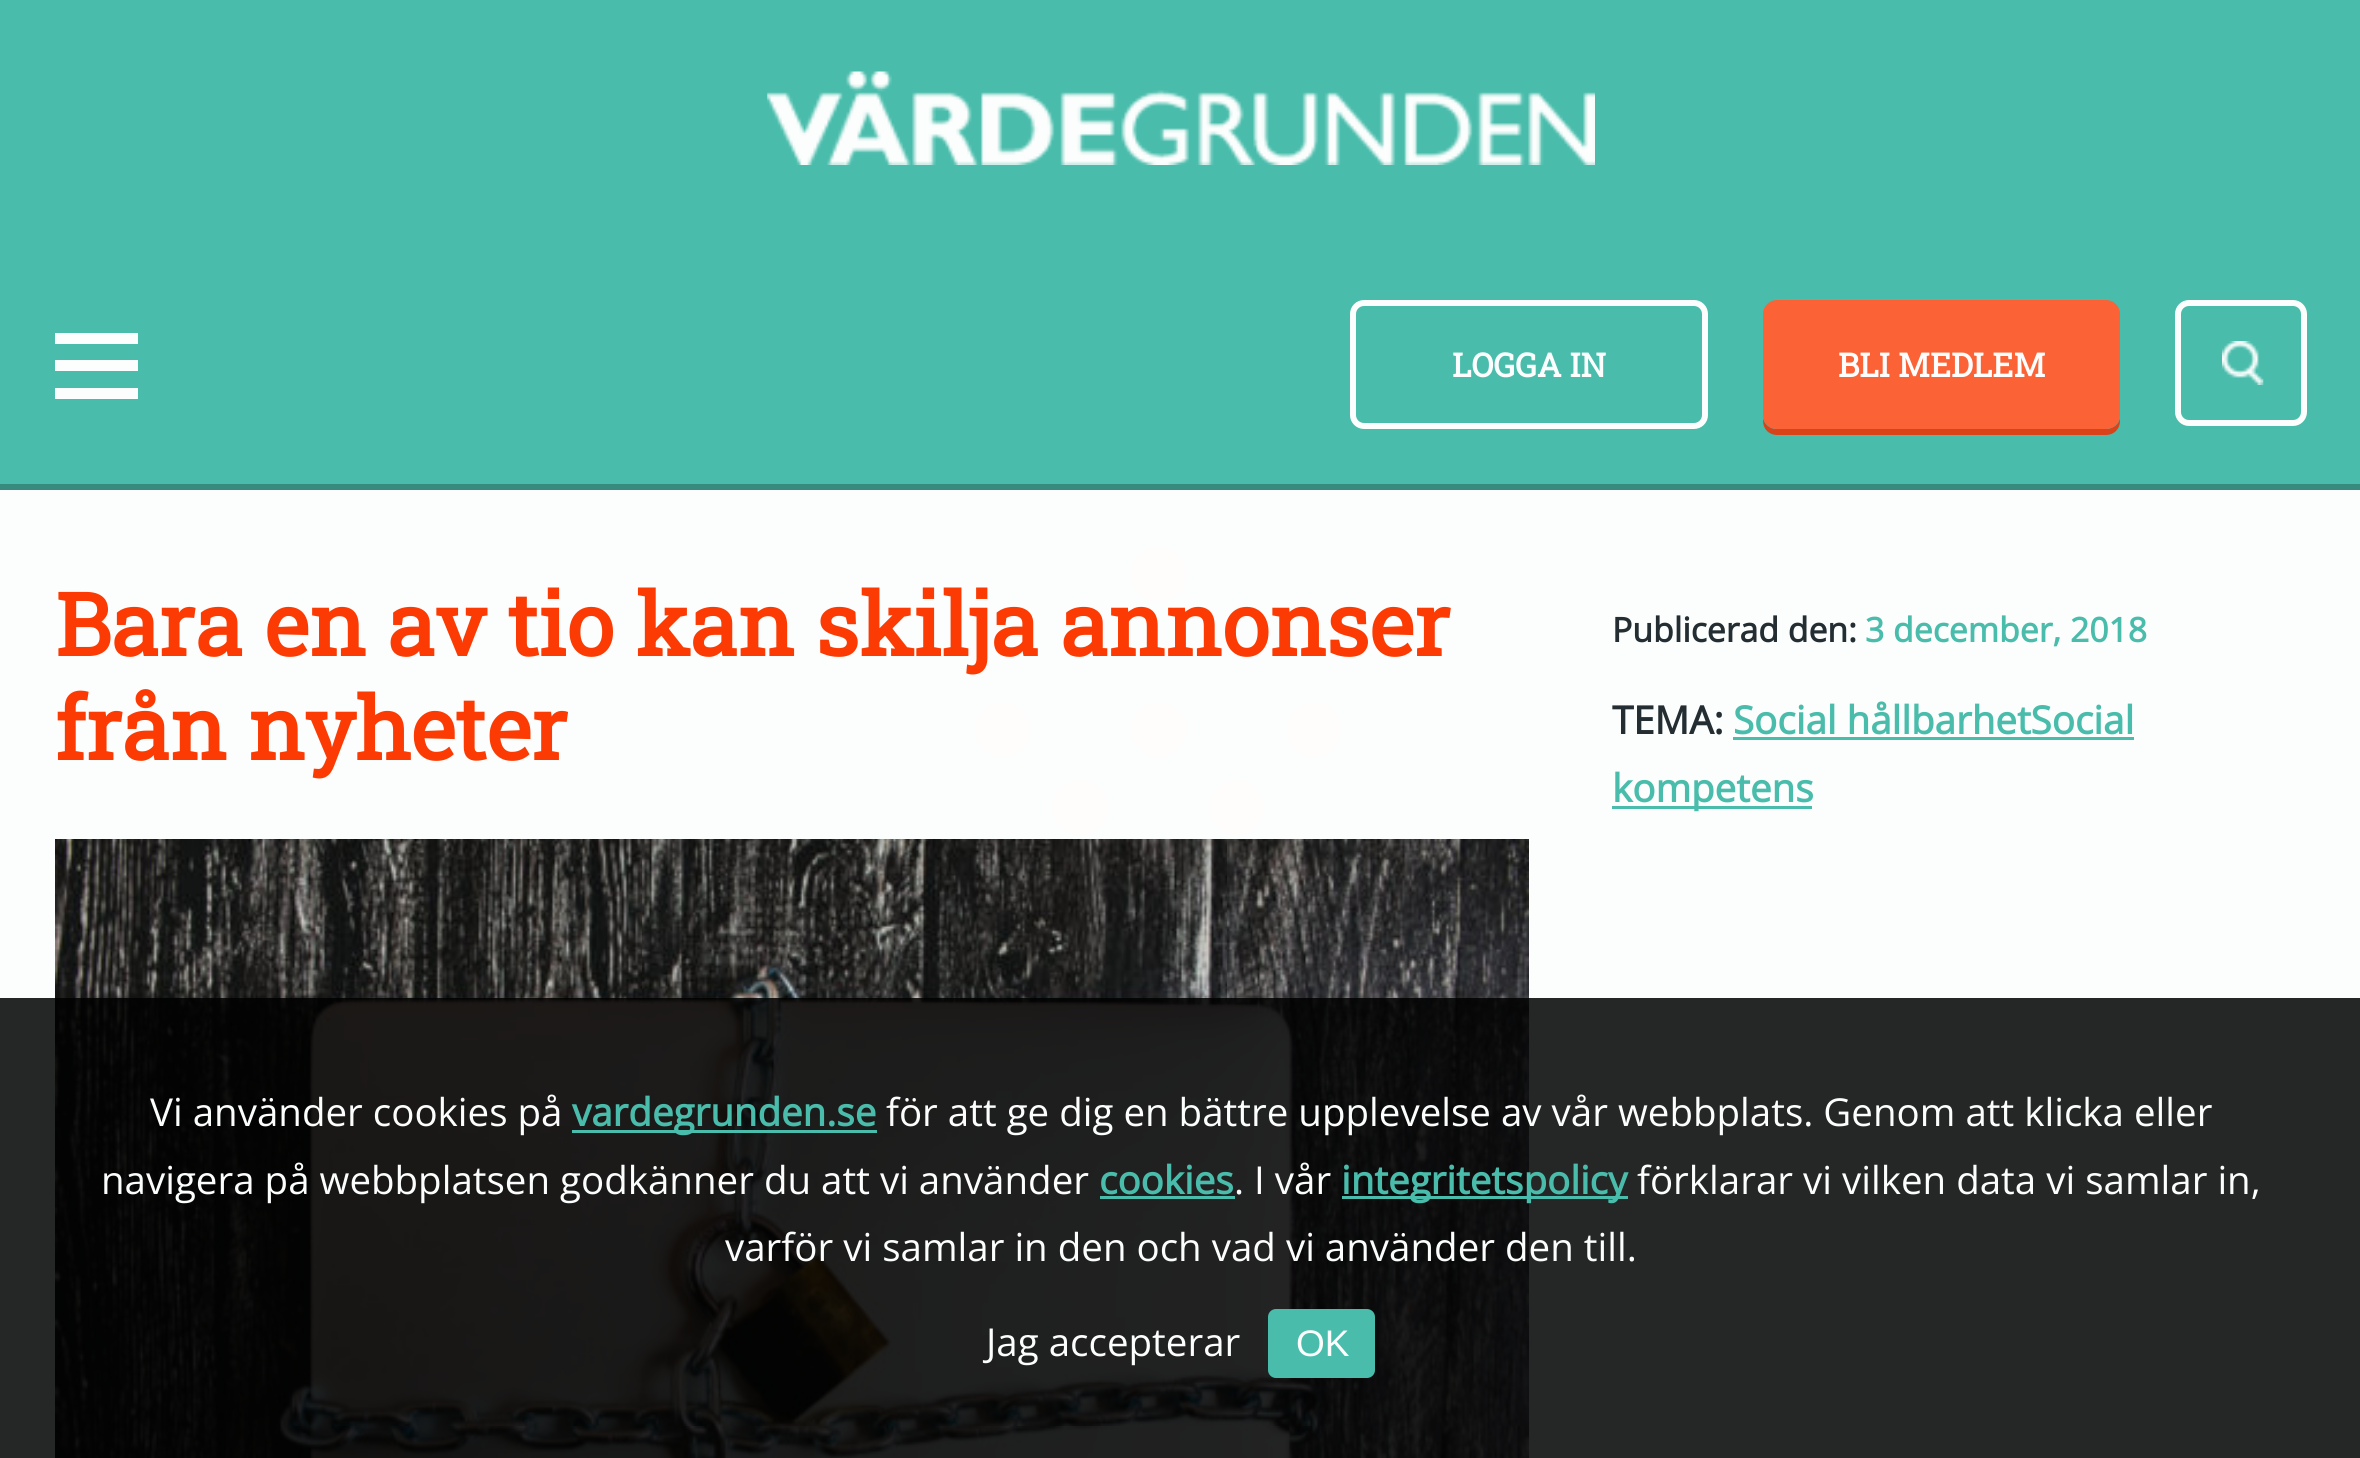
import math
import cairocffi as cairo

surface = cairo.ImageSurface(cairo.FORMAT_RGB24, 2360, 1458)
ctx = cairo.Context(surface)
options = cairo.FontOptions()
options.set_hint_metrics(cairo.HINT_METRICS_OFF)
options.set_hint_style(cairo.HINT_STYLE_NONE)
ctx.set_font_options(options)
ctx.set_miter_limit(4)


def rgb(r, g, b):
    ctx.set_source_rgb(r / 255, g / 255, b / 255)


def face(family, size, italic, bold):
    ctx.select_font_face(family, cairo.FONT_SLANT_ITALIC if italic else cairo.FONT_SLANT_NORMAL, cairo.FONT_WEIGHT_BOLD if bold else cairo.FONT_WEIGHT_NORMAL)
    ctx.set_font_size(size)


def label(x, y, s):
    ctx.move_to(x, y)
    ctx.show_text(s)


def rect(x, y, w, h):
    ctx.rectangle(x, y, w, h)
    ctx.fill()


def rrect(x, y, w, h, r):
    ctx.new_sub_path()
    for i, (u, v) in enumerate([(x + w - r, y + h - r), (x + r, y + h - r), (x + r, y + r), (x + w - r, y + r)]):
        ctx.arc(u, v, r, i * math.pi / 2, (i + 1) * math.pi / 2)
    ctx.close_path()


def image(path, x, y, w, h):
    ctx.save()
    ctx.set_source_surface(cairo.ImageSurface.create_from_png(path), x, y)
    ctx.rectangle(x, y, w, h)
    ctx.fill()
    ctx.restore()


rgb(251, 254, 253)
ctx.paint()
rgb(73, 188, 171)
rect(0, 0, 2360, 484)
rgb(54, 139, 126)
rect(0, 484, 2360, 6)
image('image0.png', 767, 71, 828, 94)
rgb(251, 254, 253)
rect(55, 360, 83, 11)
rect(55, 333, 83, 11)
rect(55, 388, 83, 11)
rrect(1353, 303, 352, 123, 11)
ctx.set_line_width(6)
ctx.stroke()
face('Roboto Slab', 33, 0, 1)
label(1452, 377, 'LOGGA IN')
rgb(218, 67, 25)
ctx.new_path()
ctx.move_to(1763, 418)
ctx.line_to(1763, 421)
ctx.curve_to(1763, 429, 1769, 435, 1777, 435)
ctx.line_to(2106, 435)
ctx.curve_to(2114, 435, 2120, 429, 2120, 421)
ctx.line_to(2120, 418)
ctx.curve_to(2119, 424, 2113, 429, 2106, 429)
ctx.line_to(1776, 429)
ctx.curve_to(1770, 429, 1764, 424, 1763, 418)
ctx.close_path()
ctx.fill()
rgb(251, 98, 54)
rrect(1766, 303, 351, 123, 11)
ctx.fill_preserve()
ctx.stroke()
rgb(251, 254, 253)
label(1838, 377, 'BLI MEDLEM')
image('image1.png', 2222, 341, 42, 44)
rrect(2178, 303, 126, 120, 11)
ctx.stroke()
face('Roboto Slab', 86.6, 0, 1)
rgb(251, 59, 3)
label(55, 656, 'Bara en av tio kan skilja annonser')
rgb(255, 252, 252)
ctx.new_path()
ctx.move_to(1178, 555)
ctx.curve_to(1189, 565, 1189, 583, 1178, 594)
ctx.curve_to(1167, 604, 1150, 604, 1139, 594)
ctx.curve_to(1128, 583, 1128, 565, 1139, 555)
ctx.curve_to(1150, 544, 1167, 544, 1178, 555)
ctx.close_path()
ctx.fill()
ctx.new_path()
ctx.move_to(1022, 710)
ctx.curve_to(1033, 721, 1033, 738, 1022, 749)
ctx.curve_to(1011, 760, 994, 760, 983, 749)
ctx.curve_to(973, 738, 973, 721, 983, 710)
ctx.curve_to(994, 700, 1011, 700, 1022, 710)
ctx.close_path()
ctx.fill()
ctx.new_path()
ctx.move_to(1178, 710)
ctx.curve_to(1189, 721, 1189, 738, 1178, 749)
ctx.curve_to(1167, 760, 1150, 760, 1139, 749)
ctx.curve_to(1128, 738, 1128, 721, 1139, 710)
ctx.curve_to(1150, 700, 1167, 700, 1178, 710)
ctx.close_path()
ctx.fill()
ctx.new_path()
ctx.move_to(1333, 710)
ctx.curve_to(1344, 721, 1344, 738, 1333, 749)
ctx.curve_to(1323, 760, 1305, 760, 1294, 749)
ctx.curve_to(1284, 738, 1284, 721, 1294, 710)
ctx.curve_to(1305, 700, 1323, 700, 1333, 710)
ctx.close_path()
ctx.fill()
ctx.new_path()
ctx.move_to(1100, 788)
ctx.curve_to(1111, 799, 1111, 816, 1100, 827)
ctx.curve_to(1089, 838, 1072, 838, 1061, 827)
ctx.curve_to(1050, 816, 1050, 799, 1061, 788)
ctx.curve_to(1072, 777, 1089, 777, 1100, 788)
ctx.close_path()
ctx.fill()
ctx.new_path()
ctx.move_to(1256, 788)
ctx.curve_to(1266, 799, 1266, 816, 1256, 827)
ctx.curve_to(1245, 838, 1227, 838, 1217, 827)
ctx.curve_to(1206, 816, 1206, 799, 1217, 788)
ctx.curve_to(1227, 777, 1245, 777, 1256, 788)
ctx.close_path()
ctx.fill()
rgb(251, 59, 3)
label(55, 760, 'från nyheter')
image('image2.png', 55, 839, 1474, 619)
face('Open Sans', 33.75, 0, 1)
rgb(35, 45, 50)
label(1612, 642, 'Publicerad den:')
rgb(73, 188, 171)
label(1865, 642, '3 december, 2018')
face('Open Sans', 38.5, 0, 1)
rgb(35, 45, 50)
label(1612, 734, 'TEMA:')
rgb(73, 188, 171)
label(1733, 734, 'Social hållbarhetSocial')
rect(1733, 737, 401, 3)
rect(1612, 806, 200, 3)
label(1612, 802, 'kompetens')
ctx.set_source_rgba(0, 0, 0, 0.85)
rect(0, 998, 2360, 460)
face('Open Sans', 38.5, 0, 0)
rgb(251, 254, 253)
label(150, 1126, 'Vi använder cookies på')
rgb(73, 188, 171)
rect(572, 1130, 305, 3)
face('Open Sans', 38.5, 0, 1)
label(572, 1126, 'vardegrunden.se')
face('Open Sans', 38.5, 0, 0)
rgb(251, 254, 253)
label(886, 1126, 'för att ge dig en bättre upplevelse av vår webbplats. Genom att klicka eller')
label(101, 1194, 'navigera på webbplatsen godkänner du att vi använder')
face('Open Sans', 38.5, 0, 1)
rgb(73, 188, 171)
label(1099, 1194, 'cookies')
rect(1100, 1196, 135, 3)
face('Open Sans', 38.5, 0, 0)
rgb(251, 254, 253)
label(1234, 1194, '. I vår')
rgb(73, 188, 171)
rect(1342, 1196, 286, 3)
face('Open Sans', 38.5, 0, 1)
label(1341, 1194, 'integritetspolicy')
face('Open Sans', 38.5, 0, 0)
rgb(251, 254, 253)
label(1637, 1194, 'förklarar vi vilken data vi samlar in,')
label(725, 1261, 'varför vi samlar in den och vad vi använder den till.')
label(986, 1356, 'Jag accepterar')
rgb(73, 188, 171)
rrect(1268, 1309, 107, 69, 8)
ctx.fill()
face('Liberation Sans', 37, 0, 0)
rgb(251, 254, 253)
label(1296, 1356, 'OK')
surface.write_to_png('render.png')
